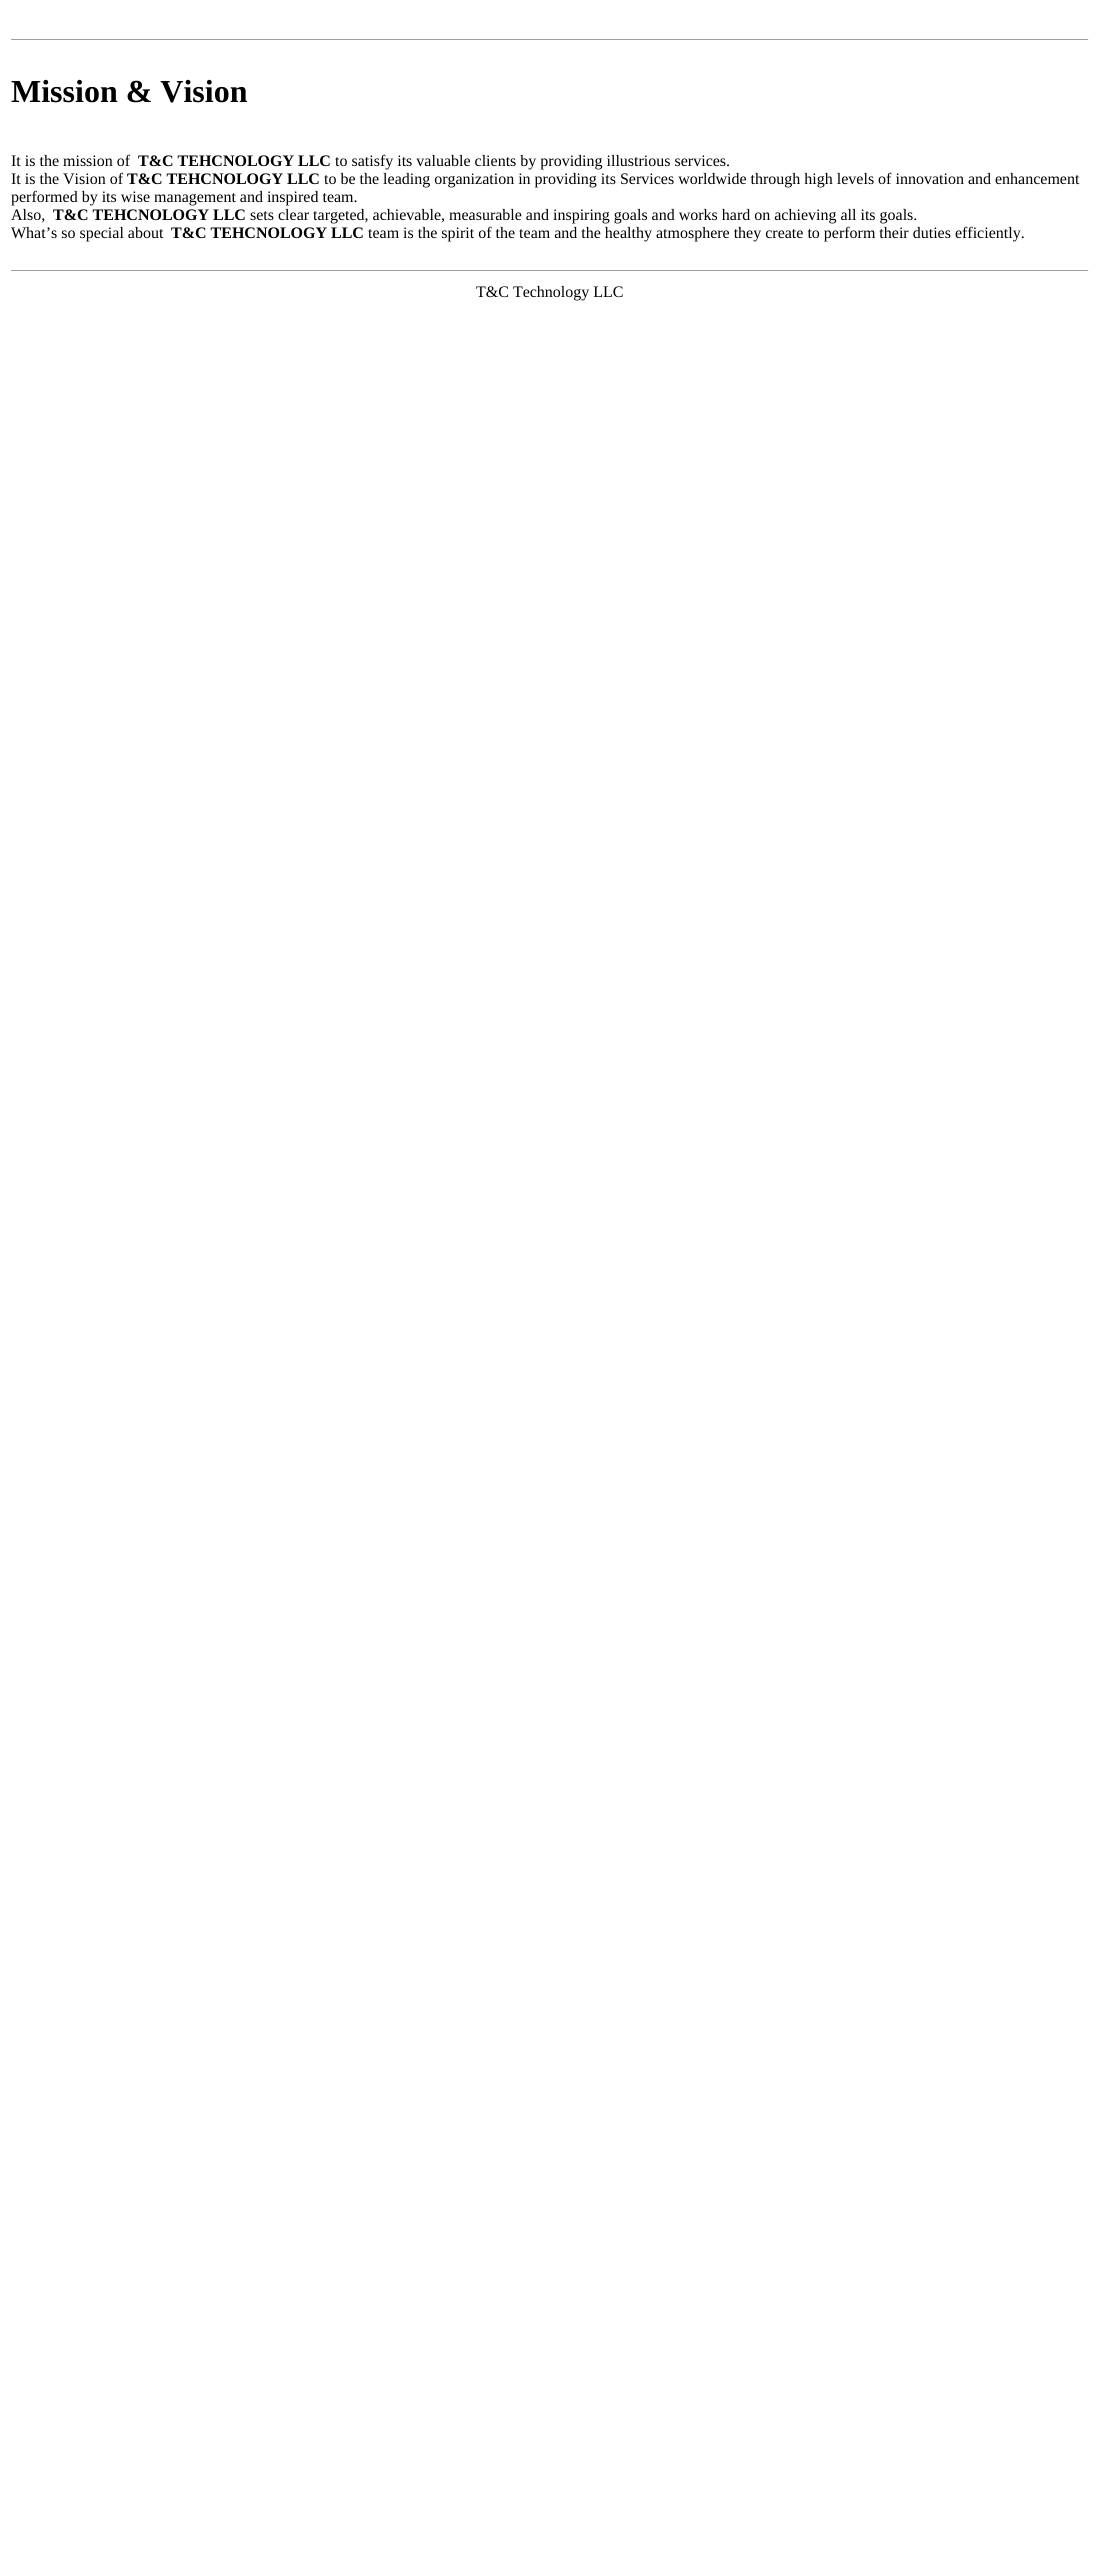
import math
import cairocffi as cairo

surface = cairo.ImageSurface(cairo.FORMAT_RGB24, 1100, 2565)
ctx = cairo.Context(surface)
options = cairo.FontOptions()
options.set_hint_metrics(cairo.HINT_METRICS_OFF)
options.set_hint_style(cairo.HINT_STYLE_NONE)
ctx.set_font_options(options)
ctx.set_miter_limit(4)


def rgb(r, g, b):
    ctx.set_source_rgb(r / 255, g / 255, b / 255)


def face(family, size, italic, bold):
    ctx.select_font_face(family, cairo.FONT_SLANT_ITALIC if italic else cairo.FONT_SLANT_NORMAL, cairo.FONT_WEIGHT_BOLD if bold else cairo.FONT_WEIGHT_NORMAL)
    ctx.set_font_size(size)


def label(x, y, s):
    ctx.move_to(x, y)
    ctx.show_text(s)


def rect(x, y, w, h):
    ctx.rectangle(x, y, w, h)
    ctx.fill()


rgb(255, 255, 255)
ctx.paint()
rgb(159, 159, 159)
rect(11, 39, 1078, 1)
rgb(238, 238, 238)
rect(1088, 39, 1, 1)
face('Liberation Serif', 32, 0, 1)
rgb(0, 0, 0)
label(11, 102, 'Mission & Vision')
face('Liberation Serif', 16, 0, 0)
label(11, 166, 'It is the mission of')
face('Liberation Serif', 16, 0, 1)
label(138, 166, 'T&C TEHCNOLOGY LLC')
face('Liberation Serif', 16, 0, 0)
label(335, 166, 'to satisfy its valuable clients by providing illustrious services.')
label(11, 184, 'It is the Vision of')
face('Liberation Serif', 16, 0, 1)
label(127, 184, 'T&C TEHCNOLOGY LLC')
face('Liberation Serif', 16, 0, 0)
label(324, 184, 'to be the leading organization in providing its Services worldwide through high levels of innovation and enhancement')
label(11, 202, 'performed by its wise management and inspired team.')
label(11, 220, 'Also,')
face('Liberation Serif', 16, 0, 1)
label(53, 220, 'T&C TEHCNOLOGY LLC')
face('Liberation Serif', 16, 0, 0)
label(250, 220, 'sets clear targeted, achievable, measurable and inspiring goals and works hard on achieving all its goals.')
label(11, 238, 'What’s so special about')
face('Liberation Serif', 16, 0, 1)
label(171, 238, 'T&C TEHCNOLOGY LLC')
face('Liberation Serif', 16, 0, 0)
label(368, 238, 'team is the spirit of the team and the healthy atmosphere they create to perform their duties efficiently.')
rgb(159, 159, 159)
rect(11, 270, 1078, 1)
rgb(238, 238, 238)
rect(1088, 270, 1, 1)
rgb(0, 0, 0)
label(476, 297, 'T&C Technology LLC')
surface.write_to_png('render.png')
